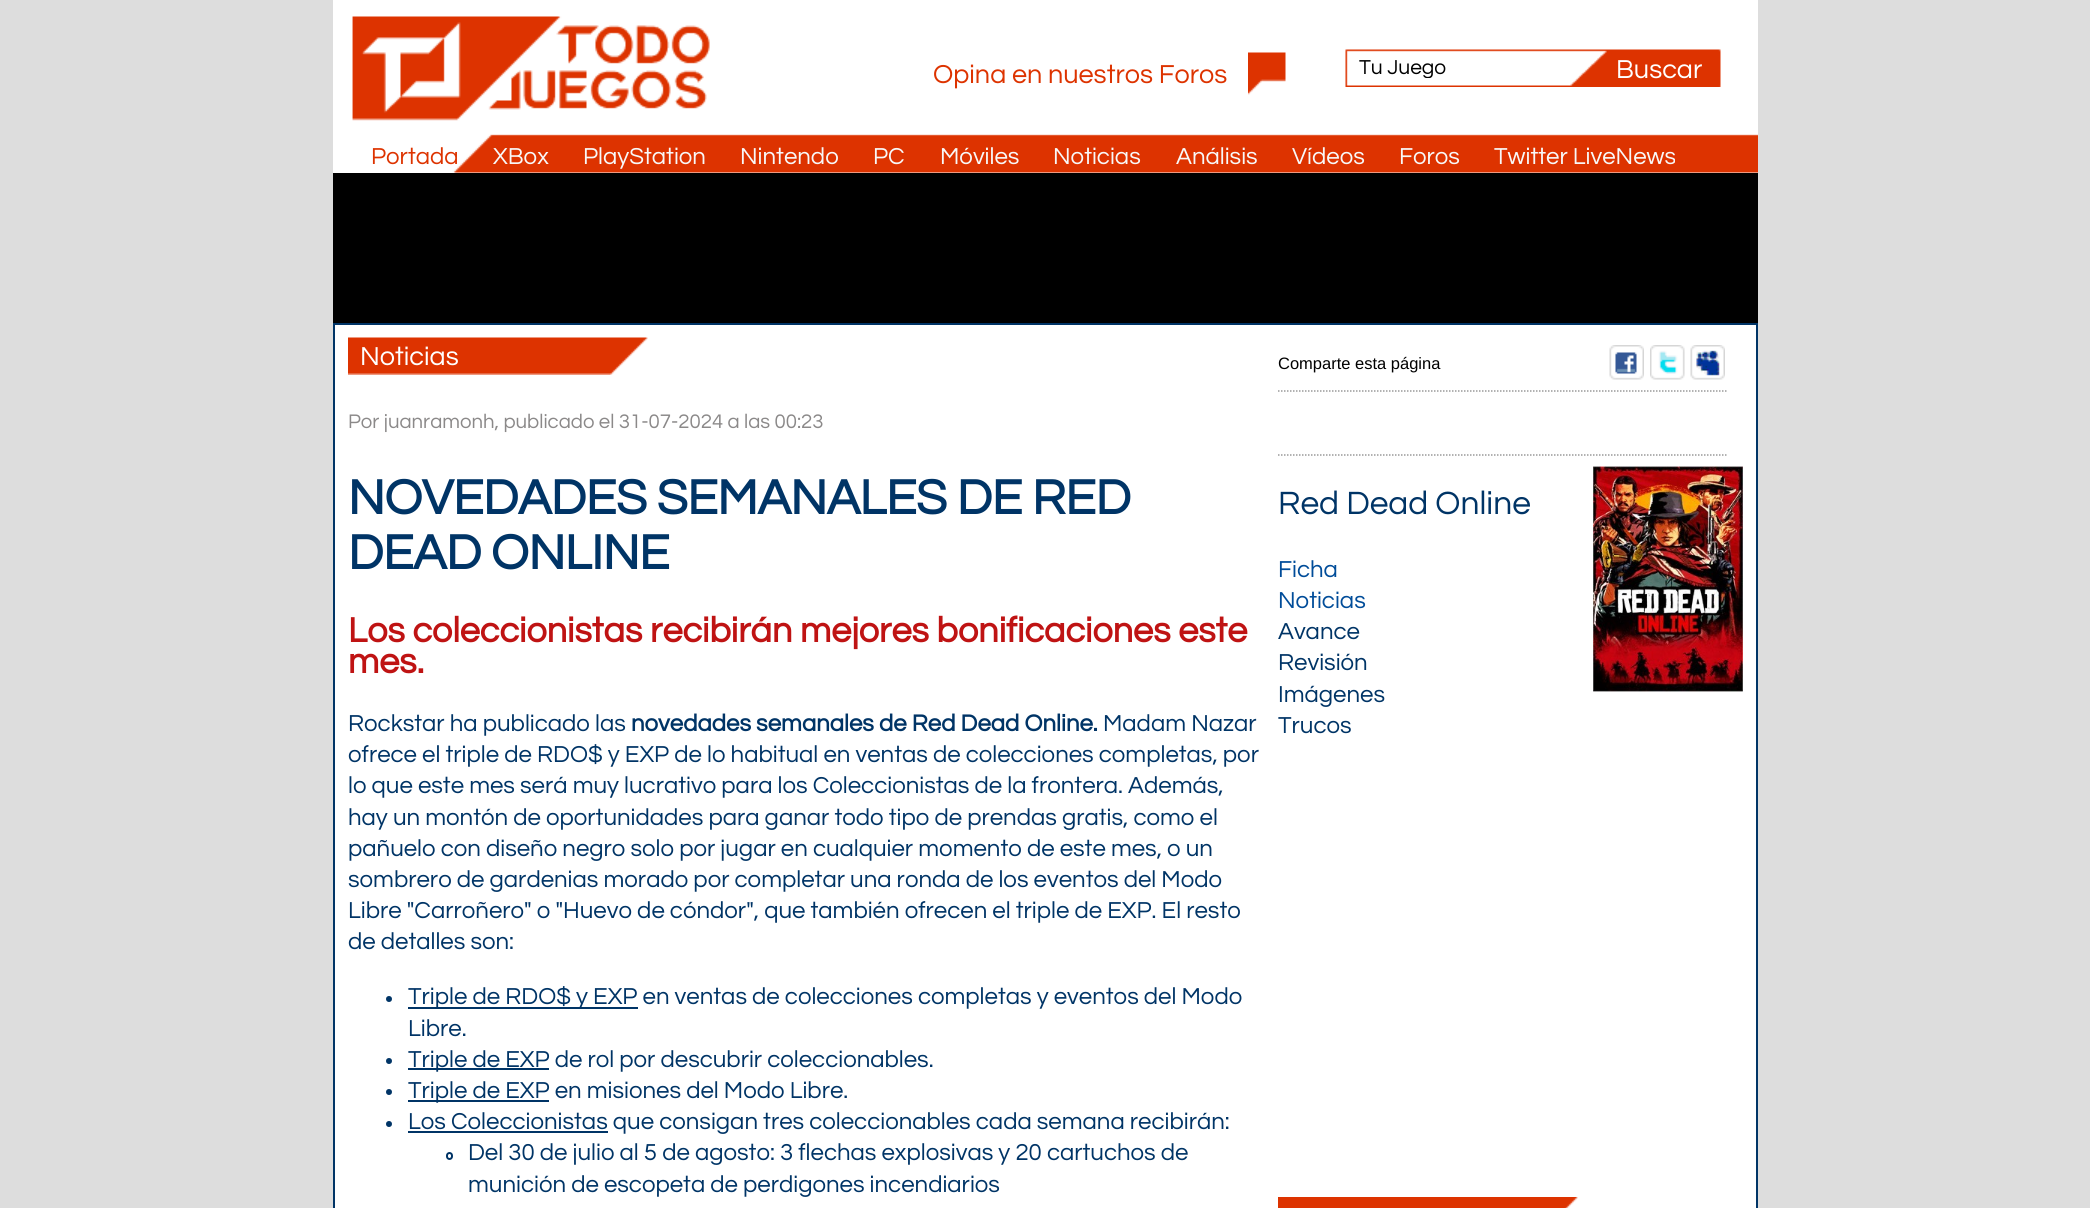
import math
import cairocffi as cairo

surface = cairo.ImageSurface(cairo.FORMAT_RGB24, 2090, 1208)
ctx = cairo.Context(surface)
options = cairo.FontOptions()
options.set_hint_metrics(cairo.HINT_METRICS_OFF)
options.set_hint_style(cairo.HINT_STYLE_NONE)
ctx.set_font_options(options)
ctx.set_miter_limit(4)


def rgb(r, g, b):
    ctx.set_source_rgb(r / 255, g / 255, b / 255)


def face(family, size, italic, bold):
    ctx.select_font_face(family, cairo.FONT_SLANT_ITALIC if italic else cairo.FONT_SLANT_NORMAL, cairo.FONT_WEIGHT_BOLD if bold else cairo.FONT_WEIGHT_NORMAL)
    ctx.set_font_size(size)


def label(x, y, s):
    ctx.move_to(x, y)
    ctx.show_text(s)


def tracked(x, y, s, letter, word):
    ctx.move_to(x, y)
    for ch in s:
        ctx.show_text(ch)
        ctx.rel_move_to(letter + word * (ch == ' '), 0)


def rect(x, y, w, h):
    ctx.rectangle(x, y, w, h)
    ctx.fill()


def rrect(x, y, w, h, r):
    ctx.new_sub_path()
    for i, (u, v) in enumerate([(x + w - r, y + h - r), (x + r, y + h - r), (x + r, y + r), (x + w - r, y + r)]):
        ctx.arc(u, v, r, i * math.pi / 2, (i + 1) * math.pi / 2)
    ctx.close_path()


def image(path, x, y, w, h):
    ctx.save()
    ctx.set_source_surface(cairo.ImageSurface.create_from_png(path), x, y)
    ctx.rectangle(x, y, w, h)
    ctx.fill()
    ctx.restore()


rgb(221, 221, 221)
ctx.paint()
rgb(255, 255, 255)
rect(333, 0, 1425, 1208)
image('image0.png', 352, 16, 1406, 157)
image('image1.png', 1248, 52, 38, 43)
face('Questrial', 27, 0, 0)
rgb(221, 51, 0)
label(933, 83, 'Opina en nuestros Foros')
image('image2.png', 1345, 49, 376, 38)
ctx.save()
ctx.rectangle(1359, 57, 200, 21)
ctx.clip()
face('Questrial', 21, 0, 0)
rgb(0, 0, 0)
label(1359, 74, 'Tu Juego')
ctx.restore()
rgb(255, 255, 255)
label(1616, 78, 'Buscar')
face('Questrial', 24, 0, 0)
rgb(221, 51, 0)
label(371, 164, 'Portada')
rgb(248, 248, 248)
label(493, 164, 'XBox')
label(583, 164, 'PlayStation')
label(740, 164, 'Nintendo')
label(873, 164, 'PC')
label(940, 164, 'Móviles')
label(1053, 164, 'Noticias')
label(1176, 164, 'Análisis')
label(1292, 164, 'Vídeos')
label(1399, 164, 'Foros')
label(1494, 164, 'Twitter LiveNews')
rgb(0, 0, 0)
rect(333, 173, 1425, 150)
ctx.rectangle(334, 324, 1423, 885)
rgb(0, 52, 102)
ctx.stroke()
image('image3.png', 348, 337, 300, 38)
face('Questrial', 27, 0, 0)
rgb(255, 255, 255)
label(360, 365, 'Noticias')
face('Questrial', 20.4, 0, 0)
rgb(139, 137, 137)
label(348, 428, 'Por juanramonh, publicado el 31-07-2024 a las 00:23')
face('Questrial', 50.4, 0, 1)
rgb(0, 52, 102)
tracked(348, 514, 'NOVEDADES SEMANALES DE RED', -0.5, 0)
tracked(348, 569, 'DEAD ONLINE', -0.5, 0)
face('Questrial', 36, 0, 1)
rgb(191, 19, 19)
label(348, 642, 'Los coleccionistas recibirán mejores bonificaciones este')
label(348, 673, 'mes.')
face('Questrial', 24, 0, 0)
rgb(0, 52, 102)
label(348, 731, 'Rockstar ha publicado las')
face('Questrial', 24, 0, 1)
label(631, 731, 'novedades semanales de Red Dead Online.')
face('Questrial', 24, 0, 0)
label(1103, 731, 'Madam Nazar')
label(348, 762, 'ofrece el triple de RDO$ y EXP de lo habitual en ventas de colecciones completas, por')
label(348, 793, 'lo que este mes será muy lucrativo para los Coleccionistas de la frontera. Además,')
label(348, 825, 'hay un montón de oportunidades para ganar todo tipo de prendas gratis, como el')
label(348, 856, 'pañuelo con diseño negro solo por jugar en cualquier momento de este mes, o un')
label(348, 887, 'sombrero de gardenias morado por completar una ronda de los eventos del Modo')
label(348, 918, 'Libre "Carroñero" o "Huevo de cóndor", que también ofrecen el triple de EXP. El resto')
label(348, 949, 'de detalles son:')
ctx.new_path()
ctx.arc(389, 999, 3, 0, 2 * math.pi)
ctx.fill()
rect(408, 1007, 230, 2)
label(408, 1004, 'Triple de RDO$ y EXP en ventas de colecciones completas y eventos del Modo')
label(408, 1036, 'Libre.')
ctx.new_path()
ctx.arc(389, 1061, 3, 0, 2 * math.pi)
ctx.fill()
rect(408, 1068, 141, 2)
label(408, 1067, 'Triple de EXP de rol por descubrir coleccionables.')
ctx.new_path()
ctx.arc(389, 1092, 3, 0, 2 * math.pi)
ctx.fill()
rect(408, 1100, 141, 2)
label(408, 1098, 'Triple de EXP en misiones del Modo Libre.')
ctx.new_path()
ctx.arc(389, 1124, 3, 0, 2 * math.pi)
ctx.fill()
rect(408, 1131, 200, 2)
label(408, 1129, 'Los Coleccionistas que consigan tres coleccionables cada semana recibirán:')
rrect(447, 1153, 5, 6, 2.5)
ctx.stroke()
label(468, 1160, 'Del 30 de julio al 5 de agosto: 3 flechas explosivas y 20 cartuchos de')
label(468, 1192, 'munición de escopeta de perdigones incendiarios')
ctx.new_path()
ctx.move_to(1278, 391)
ctx.line_to(1728, 391)
rgb(153, 153, 153)
ctx.set_line_width(1.5)
ctx.set_dash([1.5, 1.5])
ctx.stroke()
face('Liberation Sans', 16.5, 0, 0)
rgb(0, 0, 0)
label(1278, 369, 'Comparte esta página')
image('image4.png', 1609, 345, 35, 35)
image('image5.png', 1650, 345, 35, 35)
image('image6.png', 1690, 345, 35, 35)
ctx.new_path()
ctx.move_to(1278, 455)
ctx.line_to(1728, 455)
rgb(153, 153, 153)
ctx.stroke()
face('Questrial', 33.5, 0, 0)
rgb(0, 52, 102)
label(1278, 514, 'Red Dead Online')
image('image7.png', 1593, 466, 150, 226)
face('Questrial', 24, 0, 0)
rgb(0, 76, 153)
label(1278, 577, 'Ficha')
label(1278, 608, 'Noticias')
rgb(0, 52, 102)
label(1278, 639, 'Avance')
label(1278, 670, 'Revisión')
label(1278, 702, 'Imágenes')
label(1278, 733, 'Trucos')
image('image8.png', 1278, 1197, 300, 11)
surface.write_to_png('render.png')
